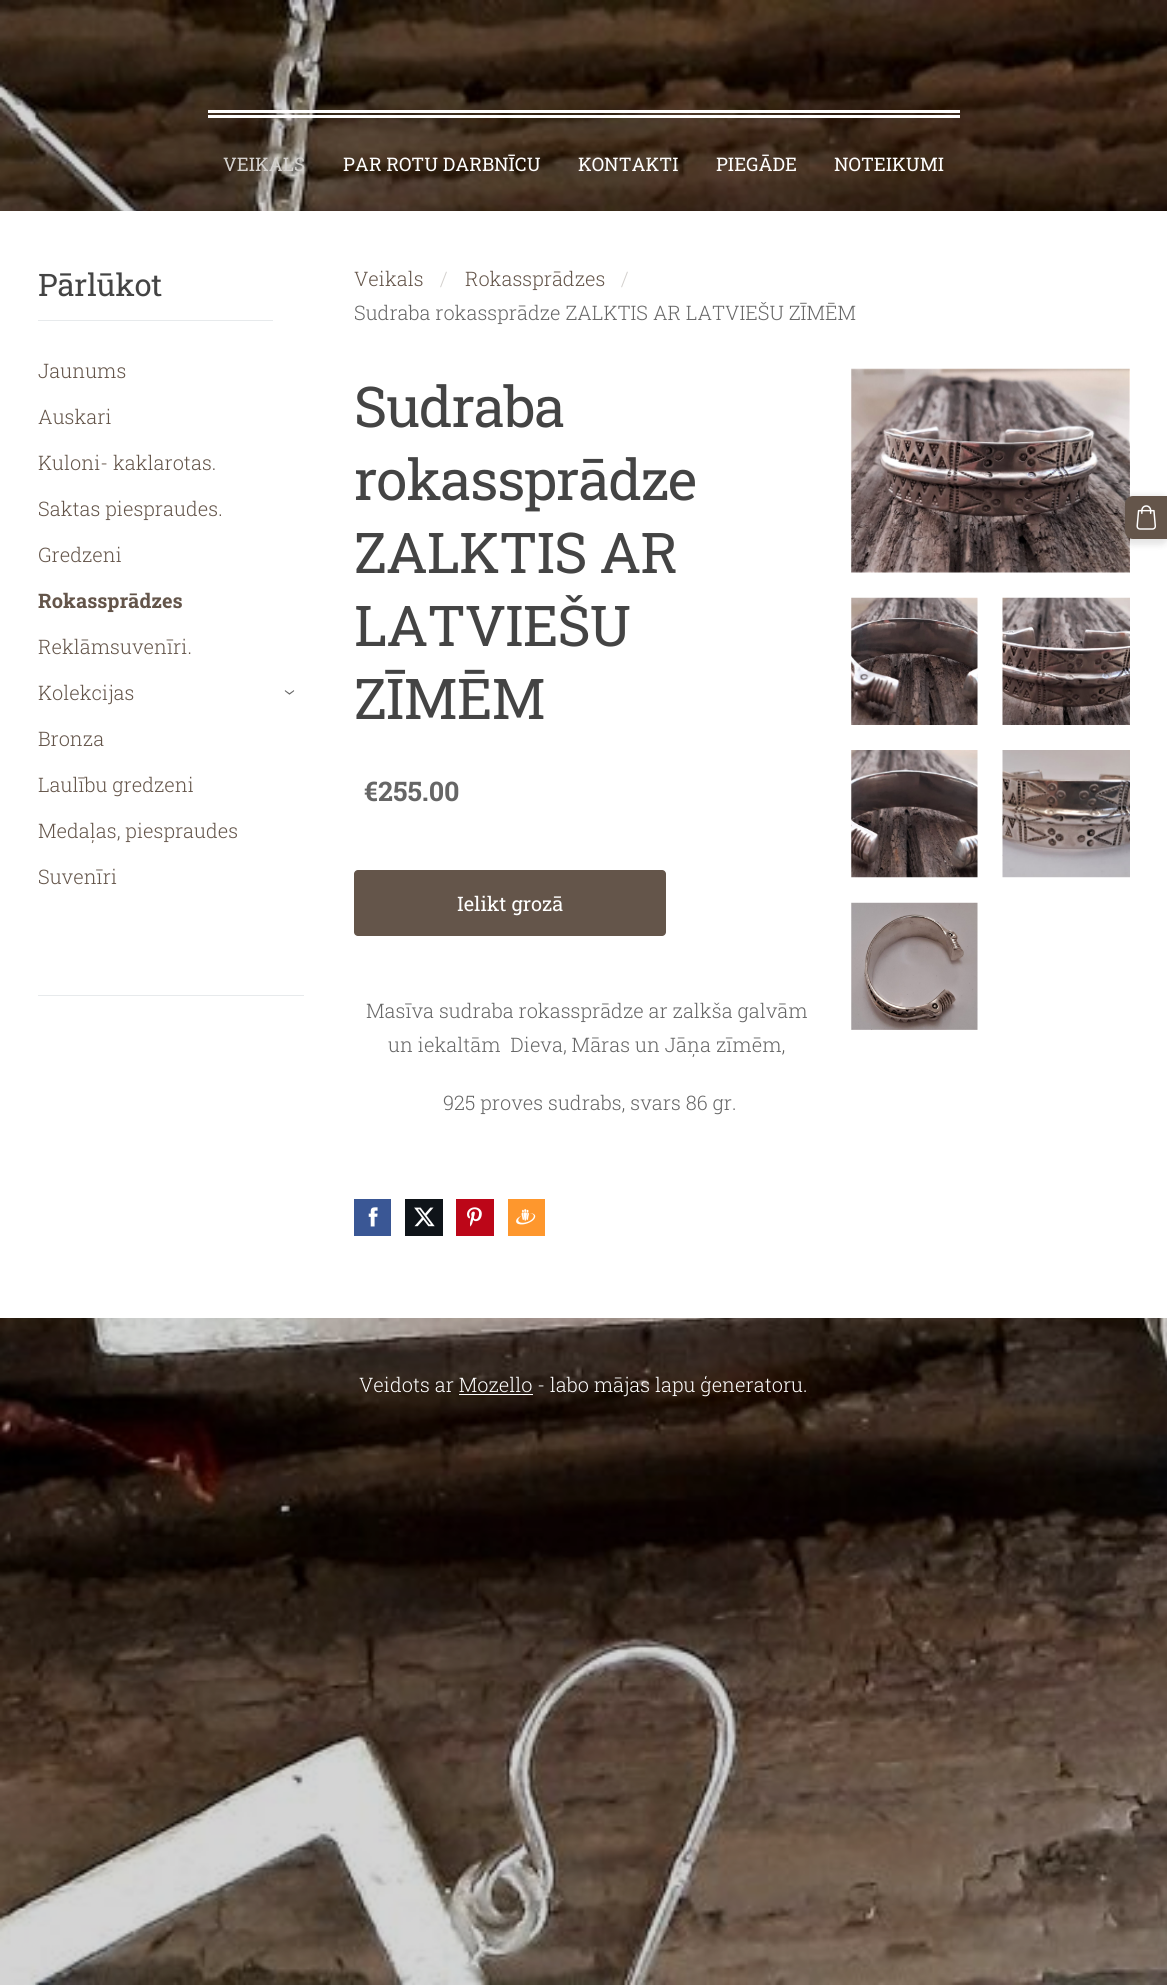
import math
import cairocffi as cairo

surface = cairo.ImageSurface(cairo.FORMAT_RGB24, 1167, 1985)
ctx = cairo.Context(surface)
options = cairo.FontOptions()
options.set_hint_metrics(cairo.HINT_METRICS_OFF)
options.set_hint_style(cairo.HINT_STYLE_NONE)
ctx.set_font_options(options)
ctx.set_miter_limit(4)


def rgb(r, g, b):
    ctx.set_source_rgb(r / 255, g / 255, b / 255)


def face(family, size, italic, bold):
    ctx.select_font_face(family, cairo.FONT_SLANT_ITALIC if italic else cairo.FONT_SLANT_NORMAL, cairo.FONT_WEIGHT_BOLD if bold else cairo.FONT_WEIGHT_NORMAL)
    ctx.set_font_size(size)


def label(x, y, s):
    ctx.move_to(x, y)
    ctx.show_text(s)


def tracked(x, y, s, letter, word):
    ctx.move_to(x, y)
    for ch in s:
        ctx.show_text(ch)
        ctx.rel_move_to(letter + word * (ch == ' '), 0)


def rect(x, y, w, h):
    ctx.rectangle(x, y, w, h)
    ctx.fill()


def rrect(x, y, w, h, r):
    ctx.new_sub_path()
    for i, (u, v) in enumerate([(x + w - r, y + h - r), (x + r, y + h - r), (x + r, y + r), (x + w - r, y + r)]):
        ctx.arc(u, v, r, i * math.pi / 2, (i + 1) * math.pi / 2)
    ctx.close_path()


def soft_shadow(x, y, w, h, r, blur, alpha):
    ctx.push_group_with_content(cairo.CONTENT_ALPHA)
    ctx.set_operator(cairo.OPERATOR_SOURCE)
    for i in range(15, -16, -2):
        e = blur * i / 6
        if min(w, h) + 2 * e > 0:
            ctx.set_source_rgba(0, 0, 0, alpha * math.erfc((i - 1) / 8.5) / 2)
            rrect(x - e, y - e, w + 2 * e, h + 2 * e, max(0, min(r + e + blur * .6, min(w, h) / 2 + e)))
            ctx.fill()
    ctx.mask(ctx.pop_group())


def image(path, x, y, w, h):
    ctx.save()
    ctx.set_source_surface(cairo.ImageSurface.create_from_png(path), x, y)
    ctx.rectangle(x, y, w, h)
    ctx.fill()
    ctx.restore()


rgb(255, 255, 255)
ctx.paint()
image('image0.png', 0, 0, 1167, 1985)
rgb(255, 255, 255)
rect(208, 110, 752, 3)
rect(208, 115, 752, 3)
face('Roboto Slab', 18.75, 0, 0)
rgb(211, 208, 205)
label(223, 171, 'VEIKALS')
rgb(255, 255, 255)
label(343, 171, 'PAR ROTU DARBNĪCU')
label(578, 171, 'KONTAKTI')
label(716, 171, 'PIEGĀDE')
label(834, 171, 'NOTEIKUMI')
rect(0, 211, 1167, 1107)
rgb(231, 234, 236)
rect(38, 320, 235, 1)
face('Roboto Slab', 31, 0, 0)
rgb(68, 68, 68)
tracked(38, 296, 'Pārlūkot', -0.25, 0)
face('Roboto Slab Light', 20, 0, 0)
rgb(100, 85, 74)
label(38, 378, 'Jaunums')
label(38, 424, 'Auskari')
label(38, 470, 'Kuloni- kaklarotas.')
label(38, 516, 'Saktas piespraudes.')
label(38, 562, 'Gredzeni')
face('Roboto Slab', 20, 0, 1)
label(38, 608, 'Rokassprādzes')
face('Roboto Slab Light', 20, 0, 0)
label(38, 654, 'Reklāmsuvenīri.')
label(38, 700, 'Kolekcijas')
face('Roboto Slab Light', 24, 0, 0)
rgb(102, 102, 102)
ctx.save()
ctx.translate(283, 689)
ctx.rotate(90 * math.pi / 180)
label(0, 0, '›')
ctx.restore()
face('Roboto Slab Light', 20, 0, 0)
rgb(100, 85, 74)
label(38, 746, 'Bronza')
label(38, 792, 'Laulību gredzeni')
label(38, 838, 'Medaļas, piespraudes')
label(38, 884, 'Suvenīri')
rgb(231, 234, 236)
rect(38, 995, 266, 1)
rgb(100, 85, 74)
label(354, 286, 'Veikals')
rgb(211, 208, 205)
label(440, 286, '/')
rgb(100, 85, 74)
label(465, 286, 'Rokassprādzes')
rgb(211, 208, 205)
label(621, 286, '/')
rgb(102, 102, 102)
label(354, 320, 'Sudraba rokassprādze ZALKTIS AR LATVIEŠU ZĪMĒM')
face('Roboto Slab', 56.25, 0, 0)
rgb(68, 68, 68)
tracked(354, 427, 'Sudraba', -1.1, 0)
tracked(354, 500, 'rokassprādze', -1.1, 0)
tracked(354, 573, 'ZALKTIS AR', -1.1, 0)
tracked(354, 646, 'LATVIEŠU', -1.1, 0)
tracked(354, 719, 'ZĪMĒM', -1.1, 0)
face('Roboto Slab', 27, 0, 1)
rgb(102, 102, 102)
label(364, 801, '€255.00')
rgb(100, 85, 74)
rrect(354, 870, 312, 66, 4)
ctx.fill()
face('Roboto Slab', 20, 0, 0)
rgb(255, 255, 255)
label(457, 911, 'Ielikt grozā')
face('Roboto Slab Light', 20, 0, 0)
rgb(102, 102, 102)
label(366, 1018, 'Masīva sudraba rokassprādze ar zalkša galvām')
label(388, 1052, 'un iekaltām  Dieva, Māras un Jāņa zīmēm,')
label(443, 1110, '925 proves sudrabs, svars 86 gr.')
rgb(58, 87, 149)
rect(354, 1199, 37, 37)
image('image1.png', 368, 1207, 10, 20)
rgb(15, 20, 25)
rect(405, 1199, 38, 37)
image('image2.png', 414, 1207, 21, 20)
rgb(188, 6, 24)
rect(456, 1199, 38, 37)
image('image3.png', 467, 1207, 15, 20)
rgb(254, 151, 45)
rect(508, 1199, 37, 37)
image('image4.png', 516, 1209, 20, 16)
image('image5.png', 851, 368, 279, 205)
image('image6.png', 851, 597, 127, 128)
image('image7.png', 1002, 597, 128, 128)
image('image8.png', 851, 750, 127, 128)
image('image9.png', 1002, 750, 128, 128)
image('image10.png', 851, 902, 127, 128)
rgb(0, 0, 0)
soft_shadow(1121, 495, 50, 50, 11, 3, 0.1)
rgb(100, 85, 74)
ctx.new_path()
ctx.move_to(1133, 496)
ctx.line_to(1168, 496)
ctx.line_to(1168, 539)
ctx.line_to(1133, 539)
ctx.curve_to(1128.5, 539, 1125, 535.5, 1125, 531)
ctx.line_to(1125, 504)
ctx.curve_to(1125, 499.5, 1128.5, 496, 1133, 496)
ctx.close_path()
ctx.fill()
image('image11.png', 1136, 505, 20, 25)
rgb(255, 255, 255)
label(359, 1392, 'Veidots ar Mozello - labo mājas lapu ģeneratoru.')
rect(459, 1394, 74, 1)
surface.write_to_png('render.png')
